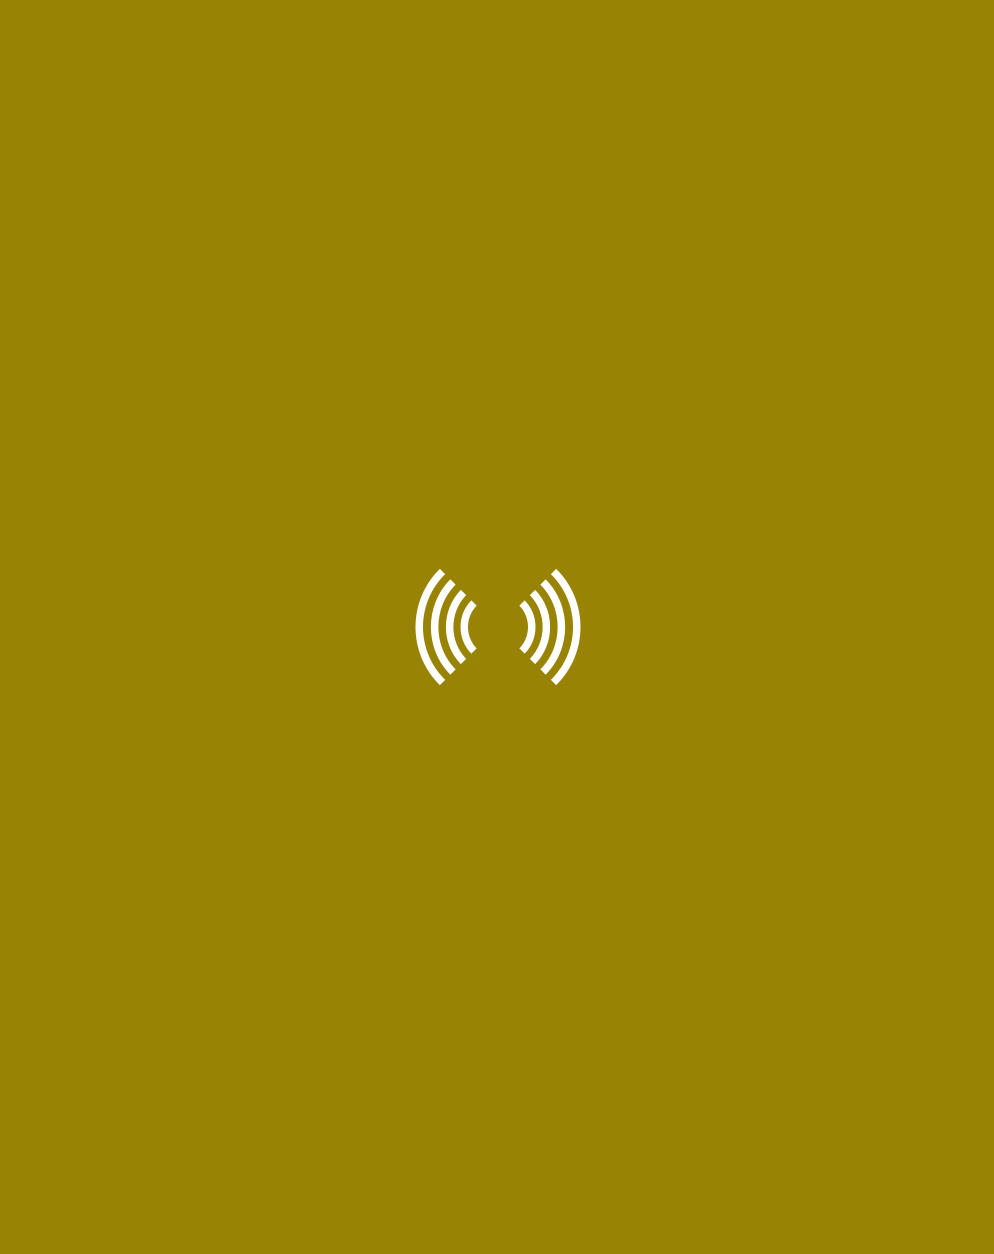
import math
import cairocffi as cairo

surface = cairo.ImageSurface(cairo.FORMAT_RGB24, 994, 1254)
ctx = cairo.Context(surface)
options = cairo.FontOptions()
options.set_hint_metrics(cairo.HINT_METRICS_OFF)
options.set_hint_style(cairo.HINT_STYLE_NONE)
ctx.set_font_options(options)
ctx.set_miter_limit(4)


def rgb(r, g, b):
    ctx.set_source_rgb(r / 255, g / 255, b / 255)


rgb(152, 131, 4)
ctx.paint()
ctx.new_path()
ctx.move_to(553.5, 571.5)
ctx.curve_to(584.5, 602, 584.5, 652, 553.5, 682.5)
rgb(255, 255, 255)
ctx.set_line_width(7.5)
ctx.stroke()
ctx.new_path()
ctx.move_to(442.5, 682.5)
ctx.curve_to(411.5, 652, 411.5, 602, 442.5, 571.5)
ctx.stroke()
ctx.new_path()
ctx.move_to(543, 582)
ctx.curve_to(567.5, 606.5, 567.5, 647.5, 543, 672)
ctx.stroke()
ctx.new_path()
ctx.move_to(453, 672)
ctx.curve_to(428.5, 647.5, 428.5, 606.5, 453, 582)
ctx.stroke()
ctx.new_path()
ctx.move_to(532.5, 592.5)
ctx.curve_to(551, 611.5, 551, 642.5, 532.5, 661.5)
ctx.stroke()
ctx.new_path()
ctx.move_to(463.5, 661.5)
ctx.curve_to(445, 642.5, 445, 611.5, 463.5, 592.5)
ctx.stroke()
ctx.new_path()
ctx.move_to(522, 603)
ctx.curve_to(535, 616, 535, 638, 522, 651)
ctx.stroke()
ctx.new_path()
ctx.move_to(474, 651)
ctx.curve_to(461, 638, 461, 616, 474, 603)
ctx.stroke()
surface.write_to_png('render.png')
